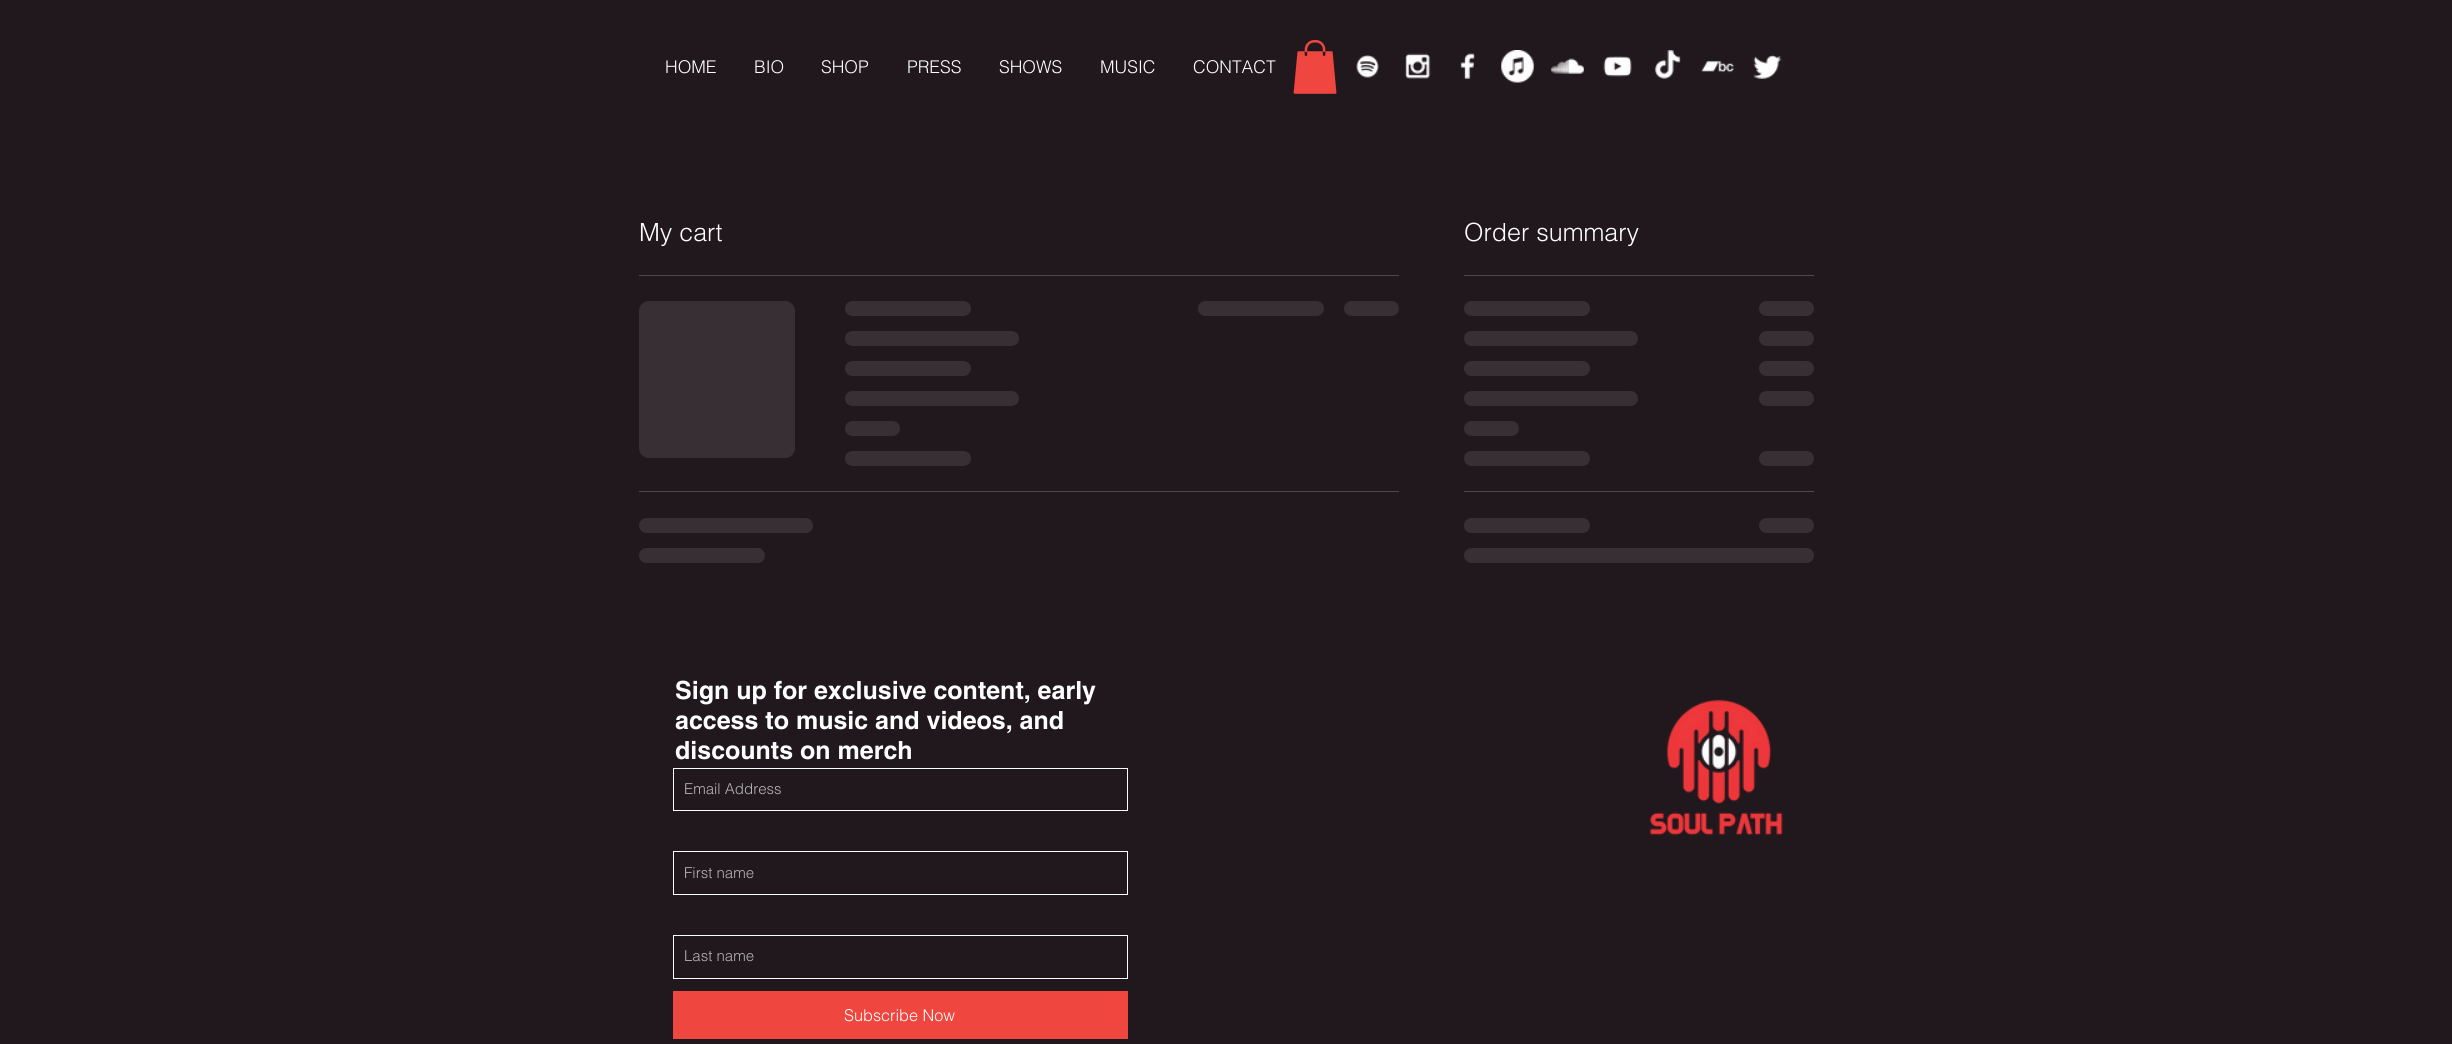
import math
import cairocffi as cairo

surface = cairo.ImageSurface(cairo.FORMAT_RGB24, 2452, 1044)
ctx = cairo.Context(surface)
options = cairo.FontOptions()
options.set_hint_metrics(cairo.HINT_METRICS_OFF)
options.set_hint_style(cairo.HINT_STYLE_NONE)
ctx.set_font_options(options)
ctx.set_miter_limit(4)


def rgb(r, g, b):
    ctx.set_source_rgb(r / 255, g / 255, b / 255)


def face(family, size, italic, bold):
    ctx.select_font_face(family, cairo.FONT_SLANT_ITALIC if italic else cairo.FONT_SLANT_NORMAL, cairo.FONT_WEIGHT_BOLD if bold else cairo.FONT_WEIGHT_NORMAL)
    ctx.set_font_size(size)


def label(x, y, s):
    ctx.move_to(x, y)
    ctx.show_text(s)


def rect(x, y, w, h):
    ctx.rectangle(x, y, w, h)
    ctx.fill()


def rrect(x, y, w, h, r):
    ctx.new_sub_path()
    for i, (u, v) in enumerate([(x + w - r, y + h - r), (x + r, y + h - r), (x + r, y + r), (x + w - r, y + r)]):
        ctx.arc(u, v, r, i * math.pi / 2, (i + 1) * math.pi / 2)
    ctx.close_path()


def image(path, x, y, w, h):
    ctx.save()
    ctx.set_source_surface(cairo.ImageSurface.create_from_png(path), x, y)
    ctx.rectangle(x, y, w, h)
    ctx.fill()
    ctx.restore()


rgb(33, 24, 29)
ctx.paint()
face('helvetica Light', 17.5, 0, 0)
rgb(255, 255, 255)
label(665, 73, 'HOME')
label(754, 73, 'BIO')
label(821, 73, 'SHOP')
label(907, 73, 'PRESS')
label(999, 73, 'SHOWS')
label(1100, 73, 'MUSIC')
label(1193, 73, 'CONTACT')
image('image0.png', 1293, 40, 44, 54)
image('image1.png', 1356, 55, 23, 23)
image('image2.png', 1405, 53, 26, 26)
image('image3.png', 1460, 53, 15, 26)
image('image4.png', 1501, 50, 33, 33)
image('image5.png', 1551, 58, 33, 16)
image('image6.png', 1603, 56, 29, 21)
image('image7.png', 1654, 50, 27, 29)
image('image8.png', 1701, 60, 33, 13)
image('image9.png', 1753, 55, 29, 24)
rgb(77, 70, 74)
rect(639, 275, 760, 1)
face('helvetica Light', 25, 0, 0)
rgb(255, 255, 255)
label(639, 241, 'My cart')
gradient = cairo.LinearGradient(639, 379, 1264, 379)
gradient.add_color_stop_rgba(0.25, 0.216, 0.184, 0.204, 1)
gradient.add_color_stop_rgba(0.37, 0.302, 0.275, 0.29, 1)
gradient.add_color_stop_rgba(0.63, 0.216, 0.184, 0.204, 1)
ctx.set_source(gradient)
rrect(639, 301, 156, 157, 10)
ctx.fill()
gradient = cairo.LinearGradient(845, 309, 1350, 309)
gradient.add_color_stop_rgba(0.25, 0.216, 0.184, 0.204, 1)
gradient.add_color_stop_rgba(0.37, 0.302, 0.275, 0.29, 1)
gradient.add_color_stop_rgba(0.63, 0.216, 0.184, 0.204, 1)
ctx.set_source(gradient)
rrect(845, 301, 126, 15, 7.5)
ctx.fill()
gradient = cairo.LinearGradient(845, 339, 1540, 339)
gradient.add_color_stop_rgba(0.25, 0.216, 0.184, 0.204, 1)
gradient.add_color_stop_rgba(0.37, 0.302, 0.275, 0.29, 1)
gradient.add_color_stop_rgba(0.63, 0.216, 0.184, 0.204, 1)
ctx.set_source(gradient)
rrect(845, 331, 174, 15, 7.5)
ctx.fill()
gradient = cairo.LinearGradient(845, 369, 1350, 369)
gradient.add_color_stop_rgba(0.25, 0.216, 0.184, 0.204, 1)
gradient.add_color_stop_rgba(0.37, 0.302, 0.275, 0.29, 1)
gradient.add_color_stop_rgba(0.63, 0.216, 0.184, 0.204, 1)
ctx.set_source(gradient)
rrect(845, 361, 126, 15, 7.5)
ctx.fill()
gradient = cairo.LinearGradient(845, 399, 1540, 399)
gradient.add_color_stop_rgba(0.25, 0.216, 0.184, 0.204, 1)
gradient.add_color_stop_rgba(0.37, 0.302, 0.275, 0.29, 1)
gradient.add_color_stop_rgba(0.63, 0.216, 0.184, 0.204, 1)
ctx.set_source(gradient)
rrect(845, 391, 174, 15, 7.5)
ctx.fill()
gradient = cairo.LinearGradient(845, 429, 1065, 429)
gradient.add_color_stop_rgba(0.25, 0.216, 0.184, 0.204, 1)
gradient.add_color_stop_rgba(0.37, 0.302, 0.275, 0.29, 1)
gradient.add_color_stop_rgba(0.63, 0.216, 0.184, 0.204, 1)
ctx.set_source(gradient)
rrect(845, 421, 55, 15, 7.5)
ctx.fill()
gradient = cairo.LinearGradient(845, 459, 1350, 459)
gradient.add_color_stop_rgba(0.25, 0.216, 0.184, 0.204, 1)
gradient.add_color_stop_rgba(0.37, 0.302, 0.275, 0.29, 1)
gradient.add_color_stop_rgba(0.63, 0.216, 0.184, 0.204, 1)
ctx.set_source(gradient)
rrect(845, 451, 126, 15, 7.5)
ctx.fill()
gradient = cairo.LinearGradient(1198, 309, 1703, 309)
gradient.add_color_stop_rgba(0.25, 0.216, 0.184, 0.204, 1)
gradient.add_color_stop_rgba(0.37, 0.302, 0.275, 0.29, 1)
gradient.add_color_stop_rgba(0.63, 0.216, 0.184, 0.204, 1)
ctx.set_source(gradient)
rrect(1198, 301, 126, 15, 7.5)
ctx.fill()
gradient = cairo.LinearGradient(1344, 309, 1564, 309)
gradient.add_color_stop_rgba(0.25, 0.216, 0.184, 0.204, 1)
gradient.add_color_stop_rgba(0.37, 0.302, 0.275, 0.29, 1)
gradient.add_color_stop_rgba(0.63, 0.216, 0.184, 0.204, 1)
ctx.set_source(gradient)
rrect(1344, 301, 55, 15, 7.5)
ctx.fill()
rgb(77, 70, 74)
rect(639, 491, 760, 1)
gradient = cairo.LinearGradient(639, 525, 1334, 525)
gradient.add_color_stop_rgba(0.25, 0.216, 0.184, 0.204, 1)
gradient.add_color_stop_rgba(0.37, 0.302, 0.275, 0.29, 1)
gradient.add_color_stop_rgba(0.63, 0.216, 0.184, 0.204, 1)
ctx.set_source(gradient)
rrect(639, 518, 174, 15, 7.5)
ctx.fill()
gradient = cairo.LinearGradient(639, 555, 1144, 555)
gradient.add_color_stop_rgba(0.25, 0.216, 0.184, 0.204, 1)
gradient.add_color_stop_rgba(0.37, 0.302, 0.275, 0.29, 1)
gradient.add_color_stop_rgba(0.63, 0.216, 0.184, 0.204, 1)
ctx.set_source(gradient)
rrect(639, 548, 126, 15, 7.5)
ctx.fill()
rgb(77, 70, 74)
rect(1464, 275, 350, 1)
rgb(255, 255, 255)
label(1464, 241, 'Order summary')
gradient = cairo.LinearGradient(1464, 309, 1969, 309)
gradient.add_color_stop_rgba(0.25, 0.216, 0.184, 0.204, 1)
gradient.add_color_stop_rgba(0.37, 0.302, 0.275, 0.29, 1)
gradient.add_color_stop_rgba(0.63, 0.216, 0.184, 0.204, 1)
ctx.set_source(gradient)
rrect(1464, 301, 126, 15, 7.5)
ctx.fill()
gradient = cairo.LinearGradient(1759, 309, 1979, 309)
gradient.add_color_stop_rgba(0.25, 0.216, 0.184, 0.204, 1)
gradient.add_color_stop_rgba(0.37, 0.302, 0.275, 0.29, 1)
gradient.add_color_stop_rgba(0.63, 0.216, 0.184, 0.204, 1)
ctx.set_source(gradient)
rrect(1759, 301, 55, 15, 7.5)
ctx.fill()
gradient = cairo.LinearGradient(1464, 339, 2159, 339)
gradient.add_color_stop_rgba(0.25, 0.216, 0.184, 0.204, 1)
gradient.add_color_stop_rgba(0.37, 0.302, 0.275, 0.29, 1)
gradient.add_color_stop_rgba(0.63, 0.216, 0.184, 0.204, 1)
ctx.set_source(gradient)
rrect(1464, 331, 174, 15, 7.5)
ctx.fill()
gradient = cairo.LinearGradient(1759, 339, 1979, 339)
gradient.add_color_stop_rgba(0.25, 0.216, 0.184, 0.204, 1)
gradient.add_color_stop_rgba(0.37, 0.302, 0.275, 0.29, 1)
gradient.add_color_stop_rgba(0.63, 0.216, 0.184, 0.204, 1)
ctx.set_source(gradient)
rrect(1759, 331, 55, 15, 7.5)
ctx.fill()
gradient = cairo.LinearGradient(1464, 369, 1969, 369)
gradient.add_color_stop_rgba(0.25, 0.216, 0.184, 0.204, 1)
gradient.add_color_stop_rgba(0.37, 0.302, 0.275, 0.29, 1)
gradient.add_color_stop_rgba(0.63, 0.216, 0.184, 0.204, 1)
ctx.set_source(gradient)
rrect(1464, 361, 126, 15, 7.5)
ctx.fill()
gradient = cairo.LinearGradient(1759, 369, 1979, 369)
gradient.add_color_stop_rgba(0.25, 0.216, 0.184, 0.204, 1)
gradient.add_color_stop_rgba(0.37, 0.302, 0.275, 0.29, 1)
gradient.add_color_stop_rgba(0.63, 0.216, 0.184, 0.204, 1)
ctx.set_source(gradient)
rrect(1759, 361, 55, 15, 7.5)
ctx.fill()
gradient = cairo.LinearGradient(1464, 399, 2159, 399)
gradient.add_color_stop_rgba(0.25, 0.216, 0.184, 0.204, 1)
gradient.add_color_stop_rgba(0.37, 0.302, 0.275, 0.29, 1)
gradient.add_color_stop_rgba(0.63, 0.216, 0.184, 0.204, 1)
ctx.set_source(gradient)
rrect(1464, 391, 174, 15, 7.5)
ctx.fill()
gradient = cairo.LinearGradient(1759, 399, 1979, 399)
gradient.add_color_stop_rgba(0.25, 0.216, 0.184, 0.204, 1)
gradient.add_color_stop_rgba(0.37, 0.302, 0.275, 0.29, 1)
gradient.add_color_stop_rgba(0.63, 0.216, 0.184, 0.204, 1)
ctx.set_source(gradient)
rrect(1759, 391, 55, 15, 7.5)
ctx.fill()
gradient = cairo.LinearGradient(1464, 429, 1684, 429)
gradient.add_color_stop_rgba(0.25, 0.216, 0.184, 0.204, 1)
gradient.add_color_stop_rgba(0.37, 0.302, 0.275, 0.29, 1)
gradient.add_color_stop_rgba(0.63, 0.216, 0.184, 0.204, 1)
ctx.set_source(gradient)
rrect(1464, 421, 55, 15, 7.5)
ctx.fill()
gradient = cairo.LinearGradient(1464, 459, 1969, 459)
gradient.add_color_stop_rgba(0.25, 0.216, 0.184, 0.204, 1)
gradient.add_color_stop_rgba(0.37, 0.302, 0.275, 0.29, 1)
gradient.add_color_stop_rgba(0.63, 0.216, 0.184, 0.204, 1)
ctx.set_source(gradient)
rrect(1464, 451, 126, 15, 7.5)
ctx.fill()
gradient = cairo.LinearGradient(1759, 459, 1979, 459)
gradient.add_color_stop_rgba(0.25, 0.216, 0.184, 0.204, 1)
gradient.add_color_stop_rgba(0.37, 0.302, 0.275, 0.29, 1)
gradient.add_color_stop_rgba(0.63, 0.216, 0.184, 0.204, 1)
ctx.set_source(gradient)
rrect(1759, 451, 55, 15, 7.5)
ctx.fill()
rgb(77, 70, 74)
rect(1464, 491, 350, 1)
gradient = cairo.LinearGradient(1464, 525, 1969, 525)
gradient.add_color_stop_rgba(0.25, 0.216, 0.184, 0.204, 1)
gradient.add_color_stop_rgba(0.37, 0.302, 0.275, 0.29, 1)
gradient.add_color_stop_rgba(0.63, 0.216, 0.184, 0.204, 1)
ctx.set_source(gradient)
rrect(1464, 518, 126, 15, 7.5)
ctx.fill()
gradient = cairo.LinearGradient(1759, 525, 1979, 525)
gradient.add_color_stop_rgba(0.25, 0.216, 0.184, 0.204, 1)
gradient.add_color_stop_rgba(0.37, 0.302, 0.275, 0.29, 1)
gradient.add_color_stop_rgba(0.63, 0.216, 0.184, 0.204, 1)
ctx.set_source(gradient)
rrect(1759, 518, 55, 15, 7.5)
ctx.fill()
gradient = cairo.LinearGradient(1464, 555, 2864, 555)
gradient.add_color_stop_rgba(0.25, 0.216, 0.184, 0.204, 1)
gradient.add_color_stop_rgba(0.37, 0.302, 0.275, 0.29, 1)
gradient.add_color_stop_rgba(0.63, 0.216, 0.184, 0.204, 1)
ctx.set_source(gradient)
rrect(1464, 548, 350, 15, 7.5)
ctx.fill()
face('helvetica', 25, 0, 1)
rgb(255, 255, 255)
label(675, 699, 'Sign up for exclusive content, early')
label(675, 729, 'access to music and videos, and')
label(675, 759, 'discounts on merch')
ctx.rectangle(673.5, 768.5, 454, 42)
ctx.set_line_width(1)
ctx.stroke()
face('helvetica Light', 15, 0, 0)
rgb(181, 181, 181)
label(684, 794, 'Email Address')
ctx.rectangle(673.5, 851.5, 454, 43)
rgb(255, 255, 255)
ctx.stroke()
rgb(181, 181, 181)
label(684, 878, 'First name')
ctx.rectangle(673.5, 935.5, 454, 43)
rgb(255, 255, 255)
ctx.stroke()
rgb(181, 181, 181)
label(684, 961, 'Last name')
rgb(239, 70, 63)
rect(673, 991, 455, 48)
face('helvetica Light', 16.25, 0, 0)
rgb(255, 255, 255)
label(844, 1021, 'Subscribe Now')
image('image10.png', 1649, 699, 134, 137)
surface.write_to_png('render.png')
